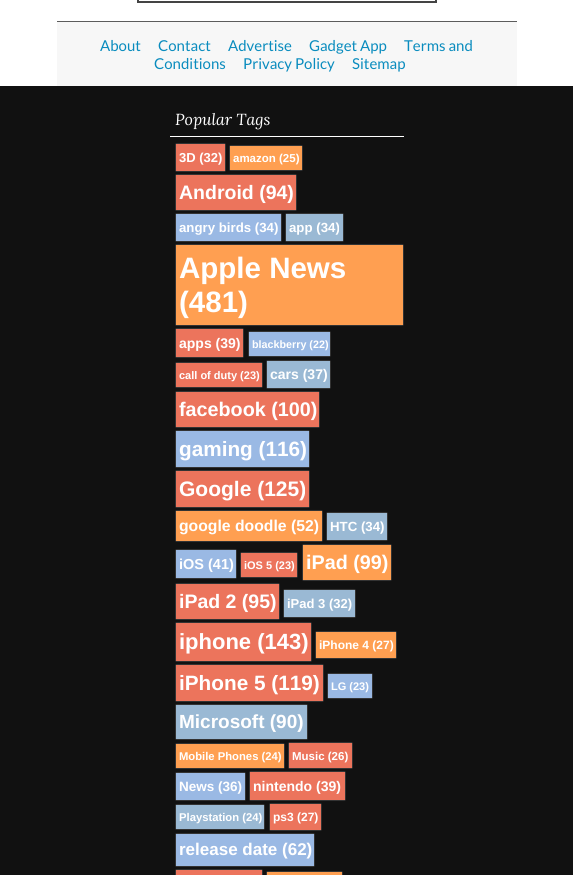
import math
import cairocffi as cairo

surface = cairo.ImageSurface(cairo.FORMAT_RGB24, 573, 875)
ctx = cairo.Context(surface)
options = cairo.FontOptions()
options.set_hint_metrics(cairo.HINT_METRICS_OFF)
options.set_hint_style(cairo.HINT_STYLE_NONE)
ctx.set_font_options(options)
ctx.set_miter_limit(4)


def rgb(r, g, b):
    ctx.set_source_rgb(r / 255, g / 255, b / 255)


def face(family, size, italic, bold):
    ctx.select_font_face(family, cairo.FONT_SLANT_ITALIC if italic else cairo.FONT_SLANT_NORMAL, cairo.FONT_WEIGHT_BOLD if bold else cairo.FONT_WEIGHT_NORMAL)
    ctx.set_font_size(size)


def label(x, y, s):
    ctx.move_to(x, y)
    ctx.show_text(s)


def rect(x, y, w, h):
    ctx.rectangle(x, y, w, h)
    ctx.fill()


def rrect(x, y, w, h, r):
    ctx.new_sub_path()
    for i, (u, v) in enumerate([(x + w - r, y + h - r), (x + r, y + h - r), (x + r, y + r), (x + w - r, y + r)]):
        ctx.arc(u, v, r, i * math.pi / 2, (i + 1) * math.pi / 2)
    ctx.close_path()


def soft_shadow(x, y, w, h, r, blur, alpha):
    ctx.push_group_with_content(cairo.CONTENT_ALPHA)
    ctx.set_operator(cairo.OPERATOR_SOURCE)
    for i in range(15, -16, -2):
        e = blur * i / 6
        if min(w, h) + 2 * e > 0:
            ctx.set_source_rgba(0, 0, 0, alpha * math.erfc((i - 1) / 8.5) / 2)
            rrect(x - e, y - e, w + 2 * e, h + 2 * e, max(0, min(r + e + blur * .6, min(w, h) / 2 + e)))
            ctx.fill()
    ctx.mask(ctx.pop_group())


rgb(255, 255, 255)
ctx.paint()
rgb(68, 68, 68)
rect(435, 0, 2, 3)
rect(137, 1, 300, 2)
rect(137, 0, 2, 3)
rgb(247, 247, 247)
rect(57, 22, 460, 64)
rgb(92, 92, 92)
rect(57, 21, 460, 1)
face('Lato', 15, 0, 0)
rgb(10, 140, 190)
label(100, 51, 'About')
label(158, 51, 'Contact')
label(228, 51, 'Advertise')
label(309, 51, 'Gadget App')
label(404, 51, 'Terms and')
label(154, 69, 'Conditions')
label(243, 69, 'Privacy Policy')
label(352, 69, 'Sitemap')
rgb(17, 17, 17)
rect(0, 86, 573, 789)
rgb(255, 255, 255)
rect(170, 136, 234, 1)
face('Lora', 16, 1, 0)
label(175, 125, 'Popular Tags')
rgb(153, 153, 153)
soft_shadow(176, 144, 49, 27, 0, 0.5, 1)
rgb(236, 116, 92)
rect(176, 144, 49, 27)
face('Liberation Sans', 13, 0, 1)
rgb(255, 255, 255)
label(179, 162, '3D (32)')
rgb(153, 153, 153)
soft_shadow(230, 146, 72, 24, 0, 0.5, 1)
rgb(255, 159, 81)
rect(230, 146, 72, 24)
face('Liberation Sans', 11.5, 0, 1)
rgb(255, 255, 255)
label(233, 162, 'amazon (25)')
rgb(153, 153, 153)
soft_shadow(176, 175, 120, 35, 0, 0.5, 1)
rgb(236, 116, 92)
rect(176, 175, 120, 35)
face('Liberation Sans', 19.5, 0, 1)
rgb(255, 255, 255)
label(179, 199, 'Android (94)')
rgb(153, 153, 153)
soft_shadow(176, 214, 105, 27, 0, 0.5, 1)
rgb(154, 185, 228)
rect(176, 214, 105, 27)
face('Liberation Sans', 13.25, 0, 1)
rgb(255, 255, 255)
label(179, 232, 'angry birds (34)')
rgb(153, 153, 153)
soft_shadow(286, 214, 57, 27, 0, 0.5, 1)
rgb(154, 185, 212)
rect(286, 214, 57, 27)
rgb(255, 255, 255)
label(289, 232, 'app (34)')
rgb(153, 153, 153)
soft_shadow(176, 245, 227, 80, 0, 0.5, 1)
rgb(255, 159, 81)
rect(176, 245, 227, 80)
face('Liberation Sans', 29.5, 0, 1)
rgb(255, 255, 255)
label(179, 278, 'Apple News')
label(179, 312, '(481)')
rgb(153, 153, 153)
soft_shadow(176, 329, 67, 28, 0, 0.5, 1)
rgb(236, 116, 92)
rect(176, 329, 67, 28)
face('Liberation Sans', 14, 0, 1)
rgb(255, 255, 255)
label(179, 348, 'apps (39)')
rgb(153, 153, 153)
soft_shadow(249, 332, 81, 24, 0, 0.5, 1)
rgb(154, 185, 228)
rect(249, 332, 81, 24)
face('Liberation Sans', 10.75, 0, 1)
rgb(255, 255, 255)
label(252, 348, 'blackberry (22)')
rgb(153, 153, 153)
soft_shadow(176, 363, 86, 24, 0, 0.5, 1)
rgb(236, 116, 92)
rect(176, 363, 86, 24)
face('Liberation Sans', 11, 0, 1)
rgb(255, 255, 255)
label(179, 379, 'call of duty (23)')
rgb(153, 153, 153)
soft_shadow(267, 361, 63, 27, 0, 0.5, 1)
rgb(154, 185, 212)
rect(267, 361, 63, 27)
face('Liberation Sans', 14, 0, 1)
rgb(255, 255, 255)
label(270, 379, 'cars (37)')
rgb(153, 153, 153)
soft_shadow(176, 392, 143, 35, 0, 0.5, 1)
rgb(236, 116, 92)
rect(176, 392, 143, 35)
face('Liberation Sans', 19.75, 0, 1)
rgb(255, 255, 255)
label(179, 416, 'facebook (100)')
rgb(153, 153, 153)
soft_shadow(176, 431, 133, 36, 0, 0.5, 1)
rgb(154, 185, 228)
rect(176, 431, 133, 36)
face('Liberation Sans', 20.75, 0, 1)
rgb(255, 255, 255)
label(179, 456, 'gaming (116)')
rgb(153, 153, 153)
soft_shadow(176, 471, 133, 36, 0, 0.5, 1)
rgb(236, 116, 92)
rect(176, 471, 133, 36)
face('Liberation Sans', 21, 0, 1)
rgb(255, 255, 255)
label(179, 496, 'Google (125)')
rgb(153, 153, 153)
soft_shadow(176, 511, 146, 30, 0, 0.5, 1)
rgb(255, 159, 81)
rect(176, 511, 146, 30)
face('Liberation Sans', 15.75, 0, 1)
rgb(255, 255, 255)
label(179, 531, 'google doodle (52)')
rgb(153, 153, 153)
soft_shadow(327, 513, 60, 27, 0, 0.5, 1)
rgb(154, 185, 212)
rect(327, 513, 60, 27)
face('Liberation Sans', 13.25, 0, 1)
rgb(255, 255, 255)
label(330, 531, 'HTC (34)')
rgb(153, 153, 153)
soft_shadow(176, 550, 60, 28, 0, 0.5, 1)
rgb(154, 185, 228)
rect(176, 550, 60, 28)
face('Liberation Sans', 14.5, 0, 1)
rgb(255, 255, 255)
label(179, 569, 'iOS (41)')
rgb(153, 153, 153)
soft_shadow(241, 553, 56, 24, 0, 0.5, 1)
rgb(236, 116, 92)
rect(241, 553, 56, 24)
face('Liberation Sans', 11, 0, 1)
rgb(255, 255, 255)
label(244, 569, 'iOS 5 (23)')
rgb(153, 153, 153)
soft_shadow(303, 545, 88, 35, 0, 0.5, 1)
rgb(255, 159, 81)
rect(303, 545, 88, 35)
face('Liberation Sans', 19.75, 0, 1)
rgb(255, 255, 255)
label(306, 569, 'iPad (99)')
rgb(153, 153, 153)
soft_shadow(176, 584, 103, 35, 0, 0.5, 1)
rgb(236, 116, 92)
rect(176, 584, 103, 35)
face('Liberation Sans', 19.5, 0, 1)
rgb(255, 255, 255)
label(179, 608, 'iPad 2 (95)')
rgb(153, 153, 153)
soft_shadow(284, 590, 71, 27, 0, 0.5, 1)
rgb(154, 185, 212)
rect(284, 590, 71, 27)
face('Liberation Sans', 13, 0, 1)
rgb(255, 255, 255)
label(287, 608, 'iPad 3 (32)')
rgb(153, 153, 153)
soft_shadow(176, 623, 135, 38, 0, 0.5, 1)
rgb(236, 116, 92)
rect(176, 623, 135, 38)
face('Liberation Sans', 22, 0, 1)
rgb(255, 255, 255)
label(179, 649, 'iphone (143)')
rgb(153, 153, 153)
soft_shadow(316, 632, 80, 26, 0, 0.5, 1)
rgb(255, 159, 81)
rect(316, 632, 80, 26)
face('Liberation Sans', 12, 0, 1)
rgb(255, 255, 255)
label(319, 649, 'iPhone 4 (27)')
rgb(153, 153, 153)
soft_shadow(176, 665, 147, 36, 0, 0.5, 1)
rgb(236, 116, 92)
rect(176, 665, 147, 36)
face('Liberation Sans', 20.75, 0, 1)
rgb(255, 255, 255)
label(179, 690, 'iPhone 5 (119)')
rgb(153, 153, 153)
soft_shadow(328, 674, 44, 24, 0, 0.5, 1)
rgb(154, 185, 228)
rect(328, 674, 44, 24)
face('Liberation Sans', 11, 0, 1)
rgb(255, 255, 255)
label(331, 690, 'LG (23)')
rgb(153, 153, 153)
soft_shadow(176, 705, 131, 34, 0, 0.5, 1)
rgb(154, 185, 212)
rect(176, 705, 131, 34)
face('Liberation Sans', 19, 0, 1)
rgb(255, 255, 255)
label(179, 728, 'Microsoft (90)')
rgb(153, 153, 153)
soft_shadow(176, 744, 108, 24, 0, 0.5, 1)
rgb(255, 159, 81)
rect(176, 744, 108, 24)
face('Liberation Sans', 11.25, 0, 1)
rgb(255, 255, 255)
label(179, 760, 'Mobile Phones (24)')
rgb(153, 153, 153)
soft_shadow(289, 743, 63, 25, 0, 0.5, 1)
rgb(236, 116, 92)
rect(289, 743, 63, 25)
face('Liberation Sans', 11.5, 0, 1)
rgb(255, 255, 255)
label(292, 760, 'Music (26)')
rgb(153, 153, 153)
soft_shadow(176, 773, 69, 27, 0, 0.5, 1)
rgb(154, 185, 228)
rect(176, 773, 69, 27)
face('Liberation Sans', 13.5, 0, 1)
rgb(255, 255, 255)
label(179, 791, 'News (36)')
rgb(153, 153, 153)
soft_shadow(250, 772, 95, 28, 0, 0.5, 1)
rgb(236, 116, 92)
rect(250, 772, 95, 28)
face('Liberation Sans', 14, 0, 1)
rgb(255, 255, 255)
label(253, 791, 'nintendo (39)')
rgb(153, 153, 153)
soft_shadow(176, 805, 88, 24, 0, 0.5, 1)
rgb(154, 185, 212)
rect(176, 805, 88, 24)
face('Liberation Sans', 11.25, 0, 1)
rgb(255, 255, 255)
label(179, 821, 'Playstation (24)')
rgb(153, 153, 153)
soft_shadow(270, 804, 51, 26, 0, 0.5, 1)
rgb(236, 116, 92)
rect(270, 804, 51, 26)
face('Liberation Sans', 12, 0, 1)
rgb(255, 255, 255)
label(273, 821, 'ps3 (27)')
rgb(153, 153, 153)
soft_shadow(176, 834, 138, 32, 0, 0.5, 1)
rgb(154, 185, 228)
rect(176, 834, 138, 32)
face('Liberation Sans', 17, 0, 1)
rgb(255, 255, 255)
label(179, 855, 'release date (62)')
rgb(153, 153, 153)
soft_shadow(176, 870, 86, 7, 0, 0.5, 1)
rgb(236, 116, 92)
rect(176, 870, 86, 5)
rgb(153, 153, 153)
soft_shadow(267, 872, 75, 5, 0, 0.5, 1)
rgb(255, 159, 81)
rect(267, 872, 75, 3)
surface.write_to_png('render.png')
